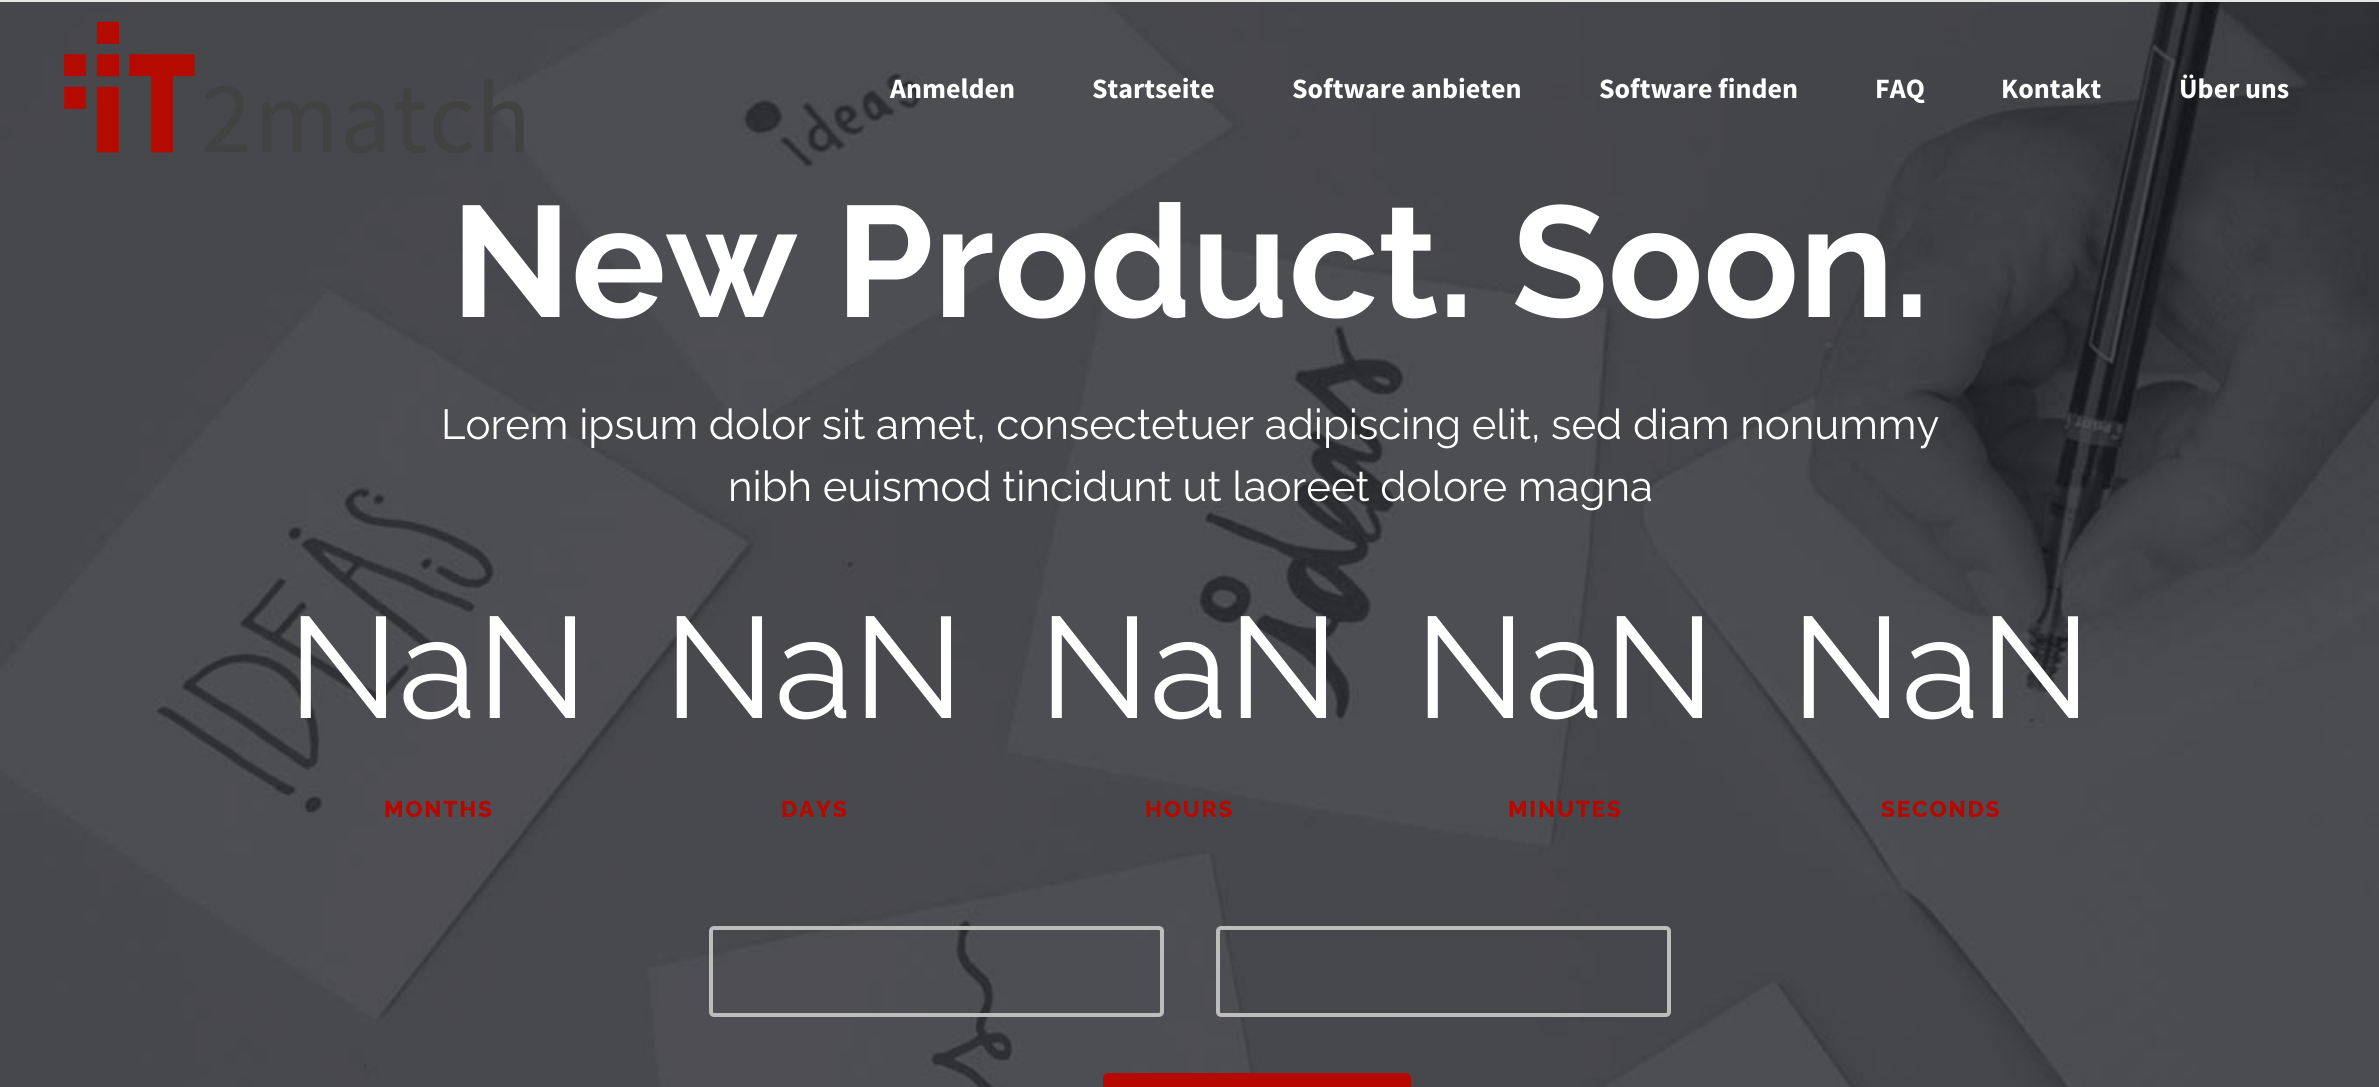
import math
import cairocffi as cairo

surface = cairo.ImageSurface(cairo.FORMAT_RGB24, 2379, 1087)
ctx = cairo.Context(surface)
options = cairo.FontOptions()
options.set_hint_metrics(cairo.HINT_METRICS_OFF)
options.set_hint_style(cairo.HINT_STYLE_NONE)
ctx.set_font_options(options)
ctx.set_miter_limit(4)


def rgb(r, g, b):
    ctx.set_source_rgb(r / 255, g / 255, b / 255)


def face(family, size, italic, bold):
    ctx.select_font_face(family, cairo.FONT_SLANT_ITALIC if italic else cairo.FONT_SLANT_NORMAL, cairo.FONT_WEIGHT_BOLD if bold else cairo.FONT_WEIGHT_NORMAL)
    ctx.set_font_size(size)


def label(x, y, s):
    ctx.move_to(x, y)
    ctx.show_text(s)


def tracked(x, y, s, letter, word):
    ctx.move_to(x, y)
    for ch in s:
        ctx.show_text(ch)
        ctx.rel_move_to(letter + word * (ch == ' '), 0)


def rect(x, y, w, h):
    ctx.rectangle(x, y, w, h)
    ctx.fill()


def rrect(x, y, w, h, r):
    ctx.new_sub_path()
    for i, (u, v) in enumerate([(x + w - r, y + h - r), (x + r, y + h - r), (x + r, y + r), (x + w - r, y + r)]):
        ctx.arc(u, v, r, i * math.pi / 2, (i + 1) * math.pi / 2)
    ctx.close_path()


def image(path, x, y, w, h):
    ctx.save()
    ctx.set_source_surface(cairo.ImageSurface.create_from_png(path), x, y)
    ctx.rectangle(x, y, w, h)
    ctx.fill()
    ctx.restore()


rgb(255, 255, 255)
ctx.paint()
rgb(231, 231, 231)
rect(0, 0, 2379, 2)
image('image1.png', 0, 2, 2379, 1085)
image('image0.png', 63, 21, 461, 132)
face('Source Sans Pro', 28, 0, 1)
rgb(255, 255, 255)
label(890, 98, 'Anmelden')
label(1092, 98, 'Startseite')
label(1292, 98, 'Software anbieten')
label(1599, 98, 'Software finden')
label(1875, 98, 'FAQ')
label(2001, 98, 'Kontakt')
label(2179, 98, 'Über uns')
face('Raleway', 157.5, 0, 1)
label(451, 317, 'New Product. Soon.')
face('Raleway', 42, 0, 0)
label(441, 439, 'Lorem ipsum dolor sit amet, consectetuer adipiscing elit, sed diam nonummy')
label(728, 501, 'nibh euismod tincidunt ut laoreet dolore magna')
face('Raleway', 143.5, 0, 0)
label(288, 718, 'NaN')
face('Raleway ExtraBold', 22.75, 0, 0)
rgb(181, 9, 0)
tracked(384, 817, 'MONTHS', 1.75, 0)
face('Raleway', 143.5, 0, 0)
rgb(255, 255, 255)
label(664, 718, 'NaN')
face('Raleway ExtraBold', 22.75, 0, 0)
rgb(181, 9, 0)
tracked(781, 817, 'DAYS', 1.75, 0)
face('Raleway', 143.5, 0, 0)
rgb(255, 255, 255)
label(1039, 718, 'NaN')
face('Raleway ExtraBold', 22.75, 0, 0)
rgb(181, 9, 0)
tracked(1145, 817, 'HOURS', 1.75, 0)
face('Raleway', 143.5, 0, 0)
rgb(255, 255, 255)
label(1415, 718, 'NaN')
face('Raleway ExtraBold', 22.75, 0, 0)
rgb(181, 9, 0)
tracked(1508, 817, 'MINUTES', 1.75, 0)
face('Raleway', 143.5, 0, 0)
rgb(255, 255, 255)
label(1791, 718, 'NaN')
face('Raleway ExtraBold', 22.75, 0, 0)
rgb(181, 9, 0)
tracked(1881, 817, 'SECONDS', 1.75, 0)
rrect(711, 928, 451, 87, 3)
rgb(189, 189, 189)
ctx.set_line_width(4)
ctx.stroke()
rrect(1218, 928, 451, 87, 3)
ctx.stroke()
rgb(181, 9, 0)
rrect(1105, 1075, 304, 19, 3)
ctx.fill_preserve()
ctx.stroke()
surface.write_to_png('render.png')
